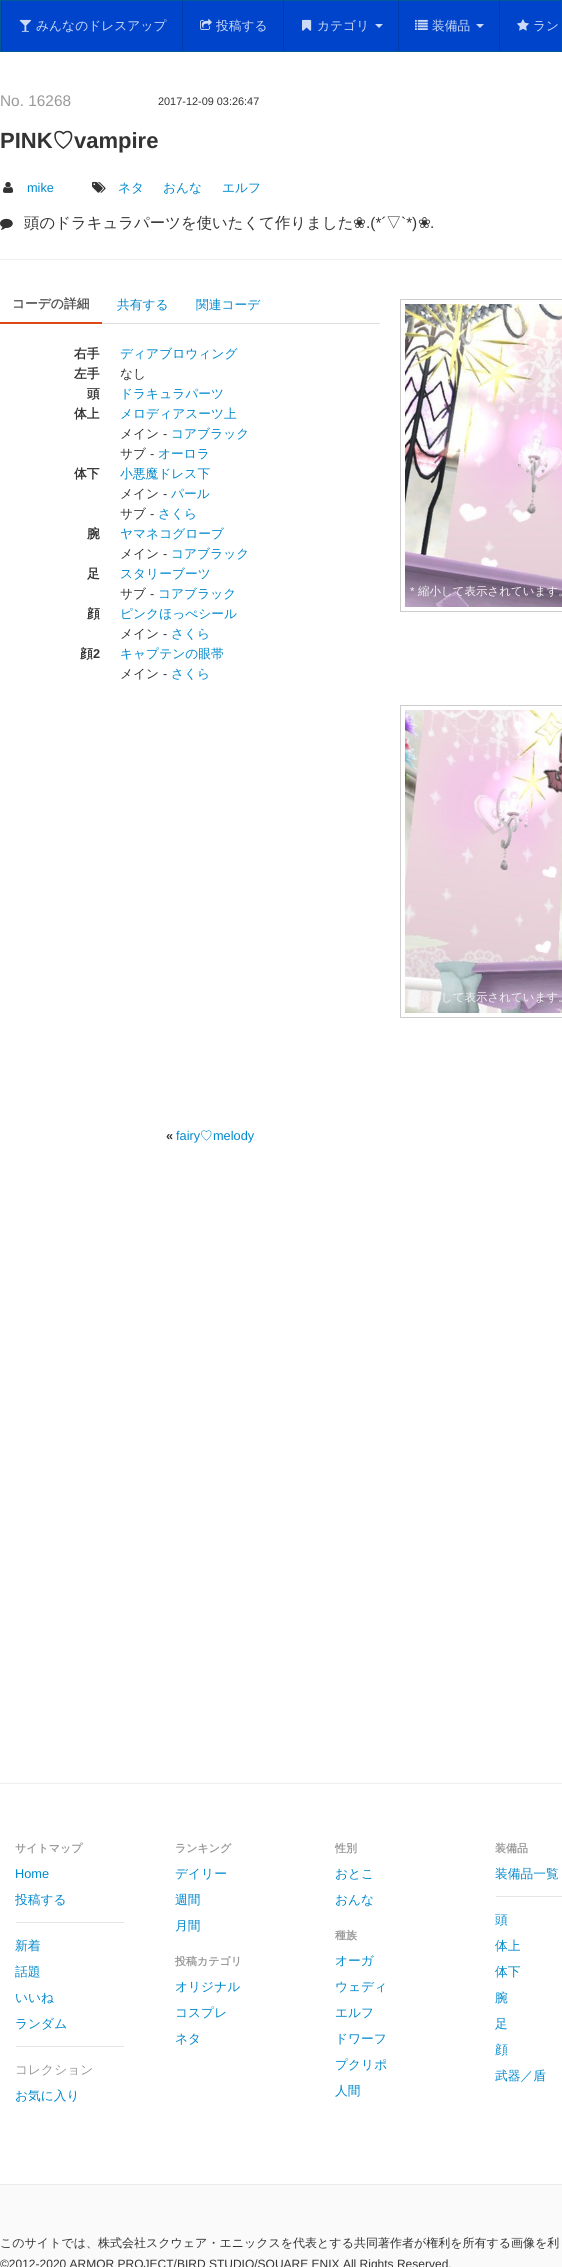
import math
import cairocffi as cairo

surface = cairo.ImageSurface(cairo.FORMAT_RGB24, 562, 2267)
ctx = cairo.Context(surface)
options = cairo.FontOptions()
options.set_hint_metrics(cairo.HINT_METRICS_OFF)
options.set_hint_style(cairo.HINT_STYLE_NONE)
ctx.set_font_options(options)
ctx.set_miter_limit(4)


def rgb(r, g, b):
    ctx.set_source_rgb(r / 255, g / 255, b / 255)


def face(family, size, italic, bold):
    ctx.select_font_face(family, cairo.FONT_SLANT_ITALIC if italic else cairo.FONT_SLANT_NORMAL, cairo.FONT_WEIGHT_BOLD if bold else cairo.FONT_WEIGHT_NORMAL)
    ctx.set_font_size(size)


def label(x, y, s):
    ctx.move_to(x, y)
    ctx.show_text(s)


def rect(x, y, w, h):
    ctx.rectangle(x, y, w, h)
    ctx.fill()


def image(path, x, y, w, h):
    ctx.save()
    ctx.set_source_surface(cairo.ImageSurface.create_from_png(path), x, y)
    ctx.rectangle(x, y, w, h)
    ctx.fill()
    ctx.restore()


rgb(255, 255, 255)
ctx.paint()
rgb(0, 68, 204)
rect(2, 1, 559, 50)
ctx.rectangle(0.5, 0.5, 561, 51)
rgb(0, 90, 150)
ctx.set_line_width(1)
ctx.stroke()
rgb(0, 58, 173)
rect(182, 1, 1, 50)
rect(1, 1, 1, 50)
image('image0.png', 19, 19, 13, 13)
face('WenQuanYi Zen Hei Medium', 12.75, 0, 0)
rgb(204, 218, 245)
label(36, 30, 'みんなのドレスアップ')
rgb(0, 58, 173)
rect(283, 1, 1, 50)
image('image1.png', 200, 19, 12, 11)
rgb(204, 218, 245)
label(216, 30, '投稿する')
rgb(0, 58, 173)
rect(398, 1, 1, 50)
image('image2.png', 302, 19, 10, 12)
rgb(204, 218, 245)
label(317, 30, 'カテゴリ')
ctx.new_path()
ctx.move_to(375, 24)
ctx.line_to(383, 24)
ctx.line_to(379, 28)
ctx.close_path()
ctx.fill()
rgb(0, 58, 173)
rect(499, 1, 1, 50)
image('image3.png', 415, 19, 13, 11)
rgb(204, 218, 245)
label(432, 30, '装備品')
ctx.new_path()
ctx.move_to(476, 24)
ctx.line_to(484, 24)
ctx.line_to(480, 28)
ctx.close_path()
ctx.fill()
image('image4.png', 517, 19, 12, 12)
label(533, 30, 'ラン')
rgb(238, 238, 238)
rect(0, 259, 562, 1)
face('Liberation Sans', 15.4, 0, 0)
rgb(153, 153, 153)
label(0, 106, 'No. 16268')
face('Liberation Sans', 10.9, 0, 0)
rgb(51, 51, 51)
label(158, 105, '2017-12-09 03:26:47')
face('Liberation Sans', 22, 0, 1)
label(0, 148, 'PINK')
face('WenQuanYi Zen Hei', 22, 0, 1)
label(52, 148, '♡')
face('Liberation Sans', 22, 0, 1)
label(74, 148, 'vampire')
image('image5.png', 3, 182, 11, 11)
face('Liberation Sans', 12.75, 0, 0)
rgb(0, 136, 204)
label(27, 192, 'mike')
image('image6.png', 92, 181, 14, 12)
face('WenQuanYi Zen Hei Medium', 12.75, 0, 0)
label(118, 192, 'ネタ')
label(163, 192, 'おんな')
label(222, 192, 'エルフ')
image('image7.png', 0, 218, 13, 12)
face('WenQuanYi Zen Hei Medium', 15.4, 0, 0)
rgb(51, 51, 51)
label(24, 228, '頭のドラキュラパーツを使いたくて作りました')
face('DejaVu Sans', 15.4, 0, 0)
label(353, 228, '❀')
face('Liberation Sans', 15.4, 0, 0)
label(366, 228, '.(*´')
face('WenQuanYi Zen Hei Medium', 15.4, 0, 0)
label(386, 228, '▽')
face('Liberation Sans', 15.4, 0, 0)
label(401, 228, '`*)')
face('DejaVu Sans', 15.4, 0, 0)
label(418, 228, '❀')
face('Liberation Sans', 15.4, 0, 0)
label(430, 228, '.')
rgb(221, 221, 221)
rect(102, 323, 278, 1)
rgb(221, 72, 20)
rect(0, 322, 102, 2)
face('WenQuanYi Zen Hei', 12.75, 0, 1)
rgb(85, 85, 85)
label(12, 308, 'コーデの詳細')
face('WenQuanYi Zen Hei Medium', 12.75, 0, 0)
rgb(0, 136, 204)
label(117, 309, '共有する')
label(196, 309, '関連コーデ')
face('WenQuanYi Zen Hei', 12.75, 0, 1)
rgb(51, 51, 51)
label(74, 358, '右手')
face('WenQuanYi Zen Hei Medium', 12.75, 0, 0)
rgb(0, 136, 204)
label(120, 358, 'ディアブロウィング')
face('WenQuanYi Zen Hei', 12.75, 0, 1)
rgb(51, 51, 51)
label(74, 378, '左手')
face('WenQuanYi Zen Hei Medium', 12.75, 0, 0)
label(120, 378, 'なし')
face('WenQuanYi Zen Hei', 12.75, 0, 1)
label(87, 398, '頭')
face('WenQuanYi Zen Hei Medium', 12.75, 0, 0)
rgb(0, 136, 204)
label(120, 398, 'ドラキュラパーツ')
face('WenQuanYi Zen Hei', 12.75, 0, 1)
rgb(51, 51, 51)
label(74, 418, '体上')
face('WenQuanYi Zen Hei Medium', 12.75, 0, 0)
rgb(0, 136, 204)
label(120, 418, 'メロディアスーツ上')
rgb(51, 51, 51)
label(120, 438, 'メイン')
face('Liberation Sans', 12.75, 0, 0)
label(163, 438, '-')
face('WenQuanYi Zen Hei Medium', 12.75, 0, 0)
rgb(0, 136, 204)
label(171, 438, 'コアブラック')
rgb(51, 51, 51)
label(120, 458, 'サブ')
face('Liberation Sans', 12.75, 0, 0)
label(150, 458, '-')
face('WenQuanYi Zen Hei Medium', 12.75, 0, 0)
rgb(0, 136, 204)
label(158, 458, 'オーロラ')
face('WenQuanYi Zen Hei', 12.75, 0, 1)
rgb(51, 51, 51)
label(74, 478, '体下')
face('WenQuanYi Zen Hei Medium', 12.75, 0, 0)
rgb(0, 136, 204)
label(120, 478, '小悪魔ドレス下')
rgb(51, 51, 51)
label(120, 498, 'メイン')
face('Liberation Sans', 12.75, 0, 0)
label(163, 498, '-')
face('WenQuanYi Zen Hei Medium', 12.75, 0, 0)
rgb(0, 136, 204)
label(171, 498, 'パール')
rgb(51, 51, 51)
label(120, 518, 'サブ')
face('Liberation Sans', 12.75, 0, 0)
label(150, 518, '-')
face('WenQuanYi Zen Hei Medium', 12.75, 0, 0)
rgb(0, 136, 204)
label(158, 518, 'さくら')
face('WenQuanYi Zen Hei', 12.75, 0, 1)
rgb(51, 51, 51)
label(87, 538, '腕')
face('WenQuanYi Zen Hei Medium', 12.75, 0, 0)
rgb(0, 136, 204)
label(120, 538, 'ヤマネコグローブ')
rgb(51, 51, 51)
label(120, 558, 'メイン')
face('Liberation Sans', 12.75, 0, 0)
label(163, 558, '-')
face('WenQuanYi Zen Hei Medium', 12.75, 0, 0)
rgb(0, 136, 204)
label(171, 558, 'コアブラック')
face('WenQuanYi Zen Hei', 12.75, 0, 1)
rgb(51, 51, 51)
label(87, 578, '足')
face('WenQuanYi Zen Hei Medium', 12.75, 0, 0)
rgb(0, 136, 204)
label(120, 578, 'スタリーブーツ')
rgb(51, 51, 51)
label(120, 598, 'サブ')
face('Liberation Sans', 12.75, 0, 0)
label(150, 598, '-')
face('WenQuanYi Zen Hei Medium', 12.75, 0, 0)
rgb(0, 136, 204)
label(158, 598, 'コアブラック')
face('WenQuanYi Zen Hei', 12.75, 0, 1)
rgb(51, 51, 51)
label(87, 618, '顔')
face('WenQuanYi Zen Hei Medium', 12.75, 0, 0)
rgb(0, 136, 204)
label(120, 618, 'ピンクほっぺシール')
rgb(51, 51, 51)
label(120, 638, 'メイン')
face('Liberation Sans', 12.75, 0, 0)
label(163, 638, '-')
face('WenQuanYi Zen Hei Medium', 12.75, 0, 0)
rgb(0, 136, 204)
label(171, 638, 'さくら')
face('WenQuanYi Zen Hei', 12.75, 0, 1)
rgb(51, 51, 51)
label(80, 658, '顔')
face('Liberation Sans', 12.75, 0, 1)
label(93, 658, '2')
face('WenQuanYi Zen Hei Medium', 12.75, 0, 0)
rgb(0, 136, 204)
label(120, 658, 'キャプテンの眼帯')
rgb(51, 51, 51)
label(120, 678, 'メイン')
face('Liberation Sans', 12.75, 0, 0)
label(163, 678, '-')
face('WenQuanYi Zen Hei Medium', 12.75, 0, 0)
rgb(0, 136, 204)
label(171, 678, 'さくら')
ctx.rectangle(400.5, 299.5, 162, 312)
rgb(204, 204, 204)
ctx.stroke()
image('image8.png', 405, 304, 157, 303)
face('Liberation Sans', 11.5, 0, 0)
rgb(245, 243, 245)
label(410, 595, '*')
face('WenQuanYi Zen Hei Medium', 11.5, 0, 0)
label(418, 595, '縮小して表示されています。')
ctx.rectangle(400.5, 705.5, 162, 312)
rgb(204, 204, 204)
ctx.stroke()
image('image9.png', 405, 710, 157, 303)
rgb(245, 243, 245)
label(418, 1001, '縮小して表示されています。')
face('Liberation Sans', 12.75, 0, 1)
rgb(51, 51, 51)
label(166, 1140, '«')
face('Liberation Sans', 12.75, 0, 0)
rgb(0, 136, 204)
label(176, 1140, 'fairy')
face('WenQuanYi Zen Hei Medium', 12.75, 0, 0)
label(200, 1140, '♡')
face('Liberation Sans', 12.75, 0, 0)
label(213, 1140, 'melody')
rgb(238, 238, 238)
rect(0, 1783, 562, 1)
face('WenQuanYi Zen Hei', 11, 0, 1)
rgb(153, 153, 153)
label(15, 1852, 'サイトマップ')
face('Liberation Sans', 12.75, 0, 0)
rgb(0, 136, 204)
label(15, 1878, 'Home')
face('WenQuanYi Zen Hei Medium', 12.75, 0, 0)
label(15, 1904, '投稿する')
rgb(229, 229, 229)
rect(16, 1922, 108, 1)
rgb(0, 136, 204)
label(15, 1950, '新着')
label(15, 1976, '話題')
label(15, 2002, 'いいね')
label(15, 2028, 'ランダム')
rgb(229, 229, 229)
rect(16, 2046, 108, 1)
rgb(153, 153, 153)
label(15, 2074, 'コレクション')
rgb(0, 136, 204)
label(15, 2100, 'お気に入り')
face('WenQuanYi Zen Hei', 11, 0, 1)
rgb(153, 153, 153)
label(175, 1852, 'ランキング')
face('WenQuanYi Zen Hei Medium', 12.75, 0, 0)
rgb(0, 136, 204)
label(175, 1878, 'デイリー')
label(175, 1904, '週間')
label(175, 1930, '月間')
face('WenQuanYi Zen Hei', 11, 0, 1)
rgb(153, 153, 153)
label(175, 1965, '投稿カテゴリ')
face('WenQuanYi Zen Hei Medium', 12.75, 0, 0)
rgb(0, 136, 204)
label(175, 1991, 'オリジナル')
label(175, 2017, 'コスプレ')
label(175, 2043, 'ネタ')
face('WenQuanYi Zen Hei', 11, 0, 1)
rgb(153, 153, 153)
label(335, 1852, '性別')
face('WenQuanYi Zen Hei Medium', 12.75, 0, 0)
rgb(0, 136, 204)
label(335, 1878, 'おとこ')
label(335, 1904, 'おんな')
face('WenQuanYi Zen Hei', 11, 0, 1)
rgb(153, 153, 153)
label(335, 1939, '種族')
face('WenQuanYi Zen Hei Medium', 12.75, 0, 0)
rgb(0, 136, 204)
label(335, 1965, 'オーガ')
label(335, 1991, 'ウェディ')
label(335, 2017, 'エルフ')
label(335, 2043, 'ドワーフ')
label(335, 2069, 'プクリポ')
label(335, 2095, '人間')
face('WenQuanYi Zen Hei', 11, 0, 1)
rgb(153, 153, 153)
label(495, 1852, '装備品')
face('WenQuanYi Zen Hei Medium', 12.75, 0, 0)
rgb(0, 136, 204)
label(495, 1878, '装備品一覧')
rgb(229, 229, 229)
rect(496, 1896, 66, 1)
rgb(0, 136, 204)
label(495, 1924, '頭')
label(495, 1950, '体上')
label(495, 1976, '体下')
label(495, 2002, '腕')
label(495, 2028, '足')
label(495, 2054, '顔')
label(495, 2080, '武器／盾')
rgb(250, 250, 250)
rect(0, 2185, 562, 82)
rgb(234, 234, 234)
rect(0, 2184, 562, 1)
face('WenQuanYi Zen Hei Medium', 12, 0, 0)
rgb(51, 51, 51)
label(0, 2247, 'このサイトでは、株式会社スクウェア・エニックスを代表とする共同著作者が権利を所有する画像を利')
face('Liberation Sans', 12, 0, 0)
label(0, 2268, '©2012-2020 ARMOR PROJECT/BIRD STUDIO/SQUARE ENIX All Rights Reserved.')
surface.write_to_png('render.png')
